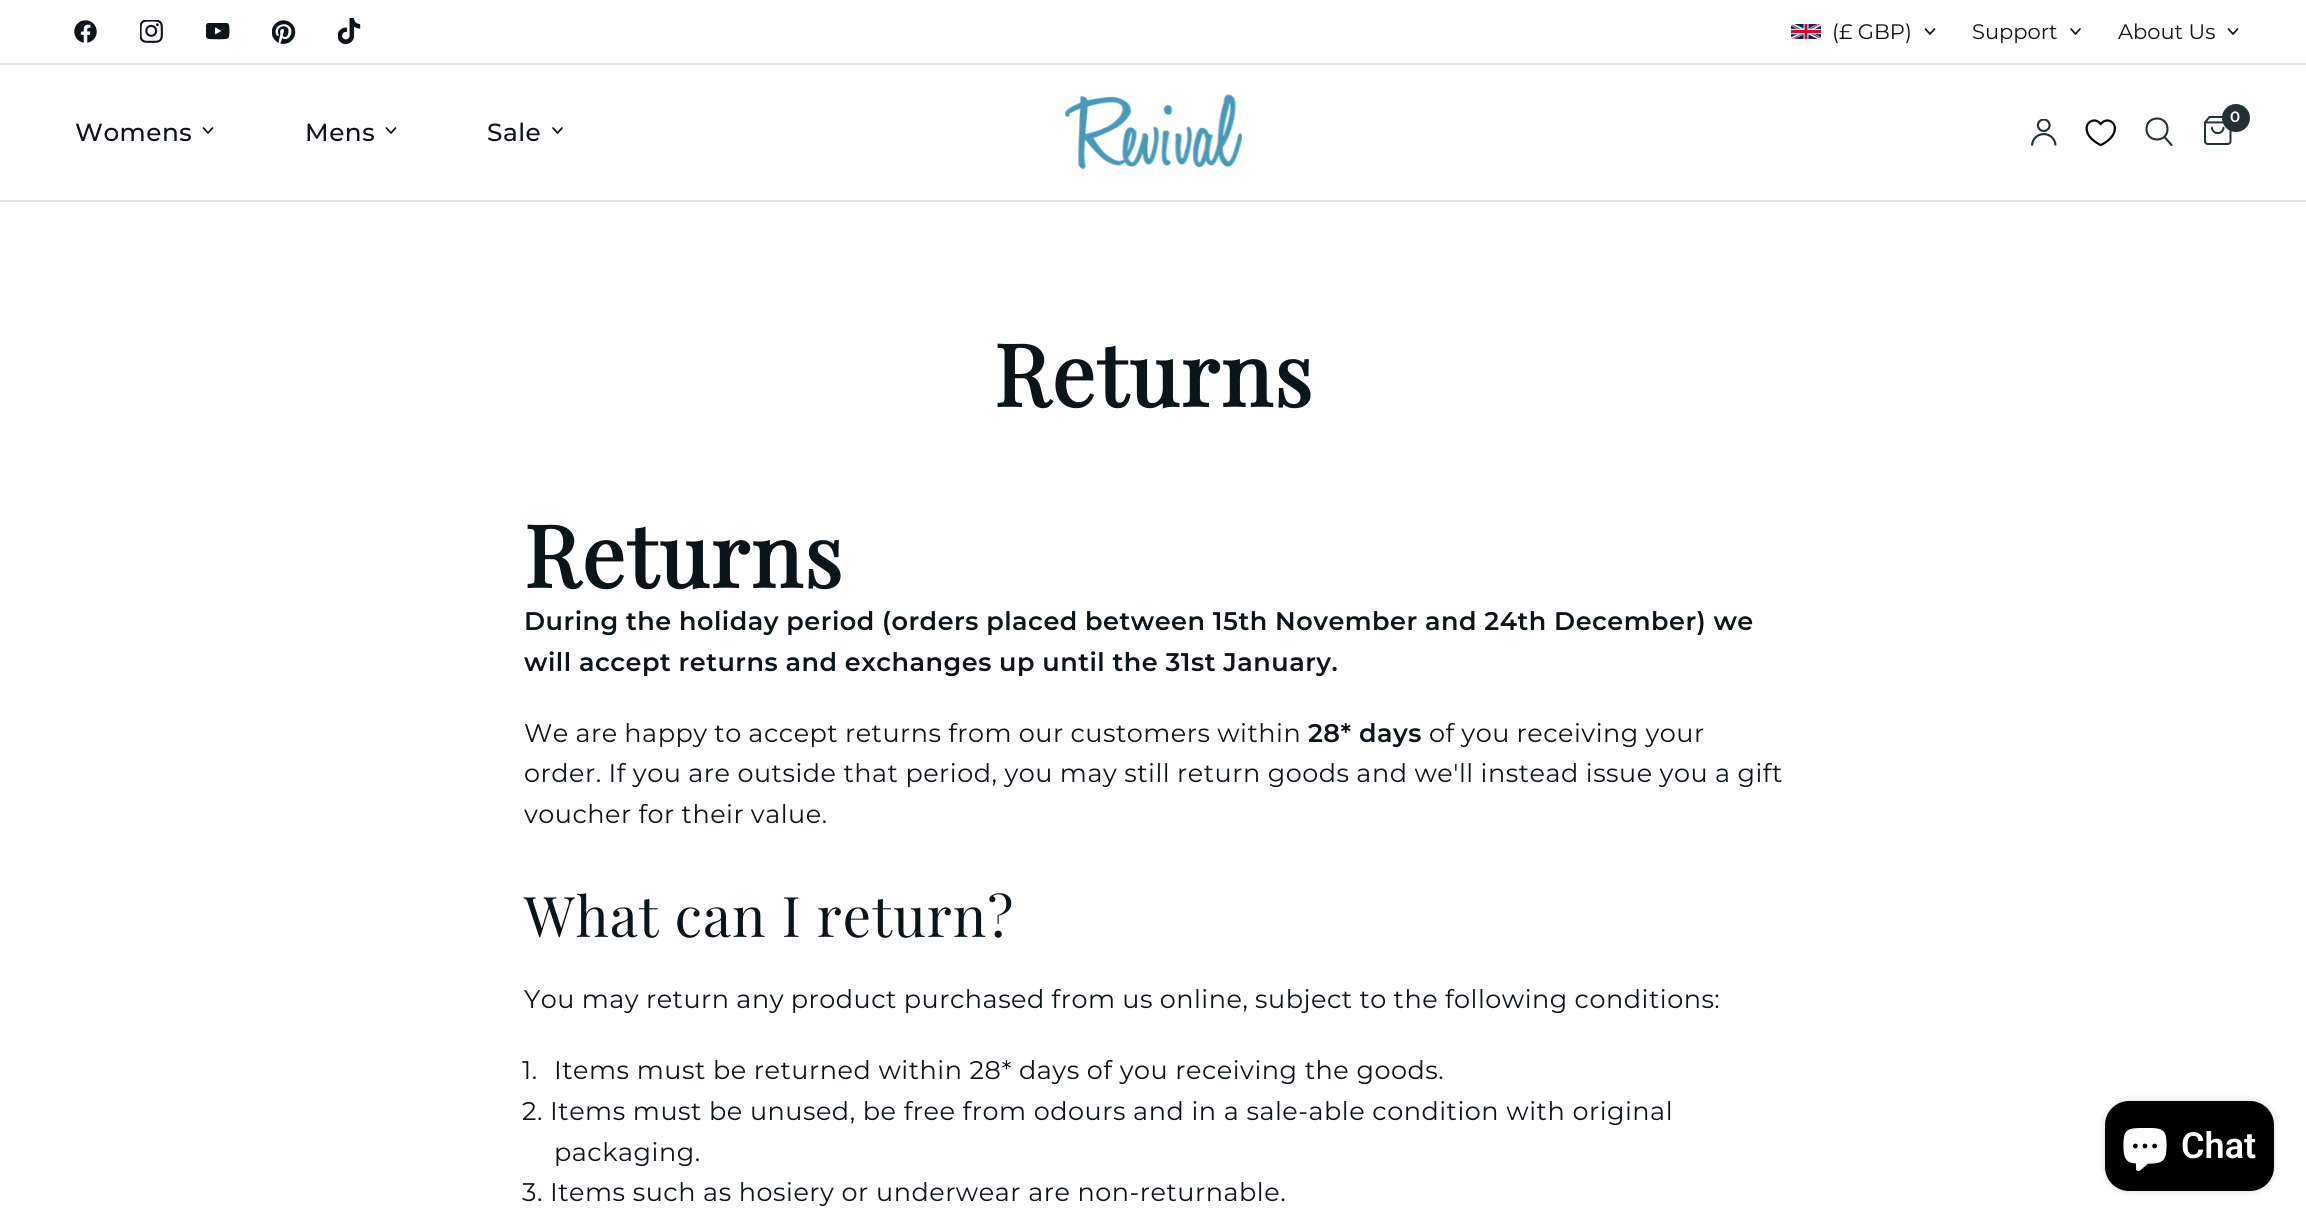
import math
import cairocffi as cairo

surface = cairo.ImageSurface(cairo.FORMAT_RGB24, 2306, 1222)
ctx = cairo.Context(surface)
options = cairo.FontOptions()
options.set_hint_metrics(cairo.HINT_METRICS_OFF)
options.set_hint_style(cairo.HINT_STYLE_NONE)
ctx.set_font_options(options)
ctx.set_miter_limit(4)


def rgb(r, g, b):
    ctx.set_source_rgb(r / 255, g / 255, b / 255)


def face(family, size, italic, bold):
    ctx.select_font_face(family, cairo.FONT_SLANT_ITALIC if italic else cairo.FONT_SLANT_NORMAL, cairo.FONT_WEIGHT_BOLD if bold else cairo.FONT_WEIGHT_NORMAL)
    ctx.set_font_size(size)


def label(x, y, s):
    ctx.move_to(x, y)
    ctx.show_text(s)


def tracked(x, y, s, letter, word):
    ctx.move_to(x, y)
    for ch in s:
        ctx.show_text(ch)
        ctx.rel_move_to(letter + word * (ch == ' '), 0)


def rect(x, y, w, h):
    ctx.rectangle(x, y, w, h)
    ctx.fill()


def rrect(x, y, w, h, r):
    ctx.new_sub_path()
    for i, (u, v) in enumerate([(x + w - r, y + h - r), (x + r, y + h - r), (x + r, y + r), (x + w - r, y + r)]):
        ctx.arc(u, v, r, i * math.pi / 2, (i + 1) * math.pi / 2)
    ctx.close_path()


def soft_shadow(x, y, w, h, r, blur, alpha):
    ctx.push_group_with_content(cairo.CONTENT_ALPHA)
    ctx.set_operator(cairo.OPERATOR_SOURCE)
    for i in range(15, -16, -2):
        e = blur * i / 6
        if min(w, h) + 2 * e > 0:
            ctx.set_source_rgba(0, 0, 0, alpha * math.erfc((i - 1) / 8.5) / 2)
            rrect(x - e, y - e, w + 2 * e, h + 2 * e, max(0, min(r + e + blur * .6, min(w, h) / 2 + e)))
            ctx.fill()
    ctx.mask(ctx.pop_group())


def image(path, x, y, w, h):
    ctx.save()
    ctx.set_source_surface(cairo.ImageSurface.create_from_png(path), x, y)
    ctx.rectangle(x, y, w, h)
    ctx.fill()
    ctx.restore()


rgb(255, 255, 255)
ctx.paint()
rgb(226, 226, 226)
rect(0, 63, 2306, 2)
image('image0.png', 74, 20, 23, 23)
image('image1.png', 140, 20, 23, 23)
image('image2.png', 206, 23, 24, 17)
image('image3.png', 272, 20, 24, 24)
image('image4.png', 338, 18, 23, 27)
image('image5.png', 1791, 24, 30, 15)
face('Montserrat Thin', 21, 0, 0)
rgb(11, 20, 24)
label(1832, 39, '(£ GBP)')
ctx.new_path()
ctx.move_to(1934.5, 29)
ctx.line_to(1930, 34)
ctx.line_to(1925.5, 29)
ctx.set_line_width(1.7)
ctx.set_line_cap(cairo.LINE_CAP_ROUND)
ctx.set_line_join(cairo.LINE_JOIN_ROUND)
ctx.stroke()
label(1972, 39, 'Support')
ctx.new_path()
ctx.move_to(2080, 29)
ctx.line_to(2075.5, 34)
ctx.line_to(2071, 29)
ctx.stroke()
label(2118, 39, 'About Us')
ctx.new_path()
ctx.move_to(2237.5, 29)
ctx.line_to(2233, 34)
ctx.line_to(2228.5, 29)
ctx.stroke()
rgb(226, 226, 226)
rect(0, 200, 2306, 2)
image('image6.png', 1065, 94, 177, 76)
image('image7.png', 2031, 119, 26, 27)
image('image8.png', 2085, 119, 31, 28)
ctx.new_path()
ctx.move_to(2164.5, 137)
ctx.line_to(2171.5, 145)
ctx.move_to(2167.5, 129)
ctx.curve_to(2167.5, 143, 2146.5, 143, 2146.5, 129)
ctx.curve_to(2146.5, 115, 2167.5, 115, 2167.5, 129)
ctx.close_path()
rgb(35, 49, 53)
ctx.set_line_width(2.1)
ctx.stroke()
image('image9.png', 2204, 116, 28, 29)
ctx.arc(2236, 118, 14, 0, 2 * math.pi)
ctx.fill()
face('Montserrat SemiBold', 15, 0, 0)
rgb(255, 255, 255)
tracked(2230, 122, '0', 0.51, 0)
face('Montserrat Medium', 24.75, 0, 0)
rgb(11, 20, 24)
tracked(75, 141, 'Womens', 0.51, 0)
ctx.new_path()
ctx.move_to(212.5, 128)
ctx.line_to(208, 133)
ctx.line_to(203.5, 128)
ctx.set_line_width(1.7)
ctx.stroke()
tracked(305, 141, 'Mens', 0.51, 0)
ctx.new_path()
ctx.move_to(395.5, 128)
ctx.line_to(391, 133)
ctx.line_to(386.5, 128)
ctx.stroke()
tracked(487, 141, 'Sale', 0.51, 0)
ctx.new_path()
ctx.move_to(562, 128)
ctx.line_to(557.5, 133)
ctx.line_to(553, 128)
ctx.stroke()
face('Playfair Display', 86, 0, 1)
tracked(994, 407, 'Returns', 1.75, 0)
tracked(524, 588, 'Returns', 1.75, 0)
face('Montserrat SemiBold', 25.5, 0, 0)
tracked(524, 630, 'During the holiday period (orders placed between 15th November and 24th December) we', 0.51, -0.25)
tracked(524, 671, 'will accept returns and exchanges up until the 31st January.', 0.51, -0.25)
face('Montserrat Thin', 25.5, 0, 0)
tracked(524, 742, 'We are happy to accept returns from our customers within', 0.51, -0.5)
face('Montserrat SemiBold', 25.5, 0, 0)
tracked(1308, 742, '28*', 0.51, 0)
tracked(1359, 742, 'days', 0.51, 0)
face('Montserrat Thin', 25.5, 0, 0)
tracked(1429, 742, 'of you receiving your', 0.51, -0.5)
tracked(524, 782, 'order. If you are outside that period, you may still return goods and we\'ll instead issue you a gift', 0.51, -0.25)
tracked(524, 823, 'voucher for their value.', 0.51, -0.5)
face('Playfair Display', 56, 0, 0)
tracked(524, 937, 'What can I return?', 1.1, 0)
face('Montserrat Thin', 25.5, 0, 0)
tracked(524, 1008, 'You may return any product purchased from us online, subject to the following conditions:', 0.51, -0.4)
tracked(522, 1079, '1.', 0.51, 0)
tracked(554, 1079, 'Items must be returned within 28* days of you receiving the goods.', 0.51, 0)
tracked(522, 1120, '2. Items must be unused, be free from odours and in a sale-able condition with original', 0.51, 0)
tracked(554, 1161, 'packaging.', 0.51, 0)
tracked(522, 1201, '3. Items such as hosiery or underwear are non-returnable.', 0.51, 0)
rgb(0, 0, 0)
soft_shadow(2105, 1101, 169, 90, 24, 4, 0.15)
rgb(0, 0, 0)
rrect(2105, 1101, 169, 90, 24)
ctx.fill()
image('image10.png', 2123, 1128, 44, 44)
face('Roboto SemiBold', 36, 0, 0)
rgb(255, 255, 255)
label(2181, 1158, 'Chat')
surface.write_to_png('render.png')
